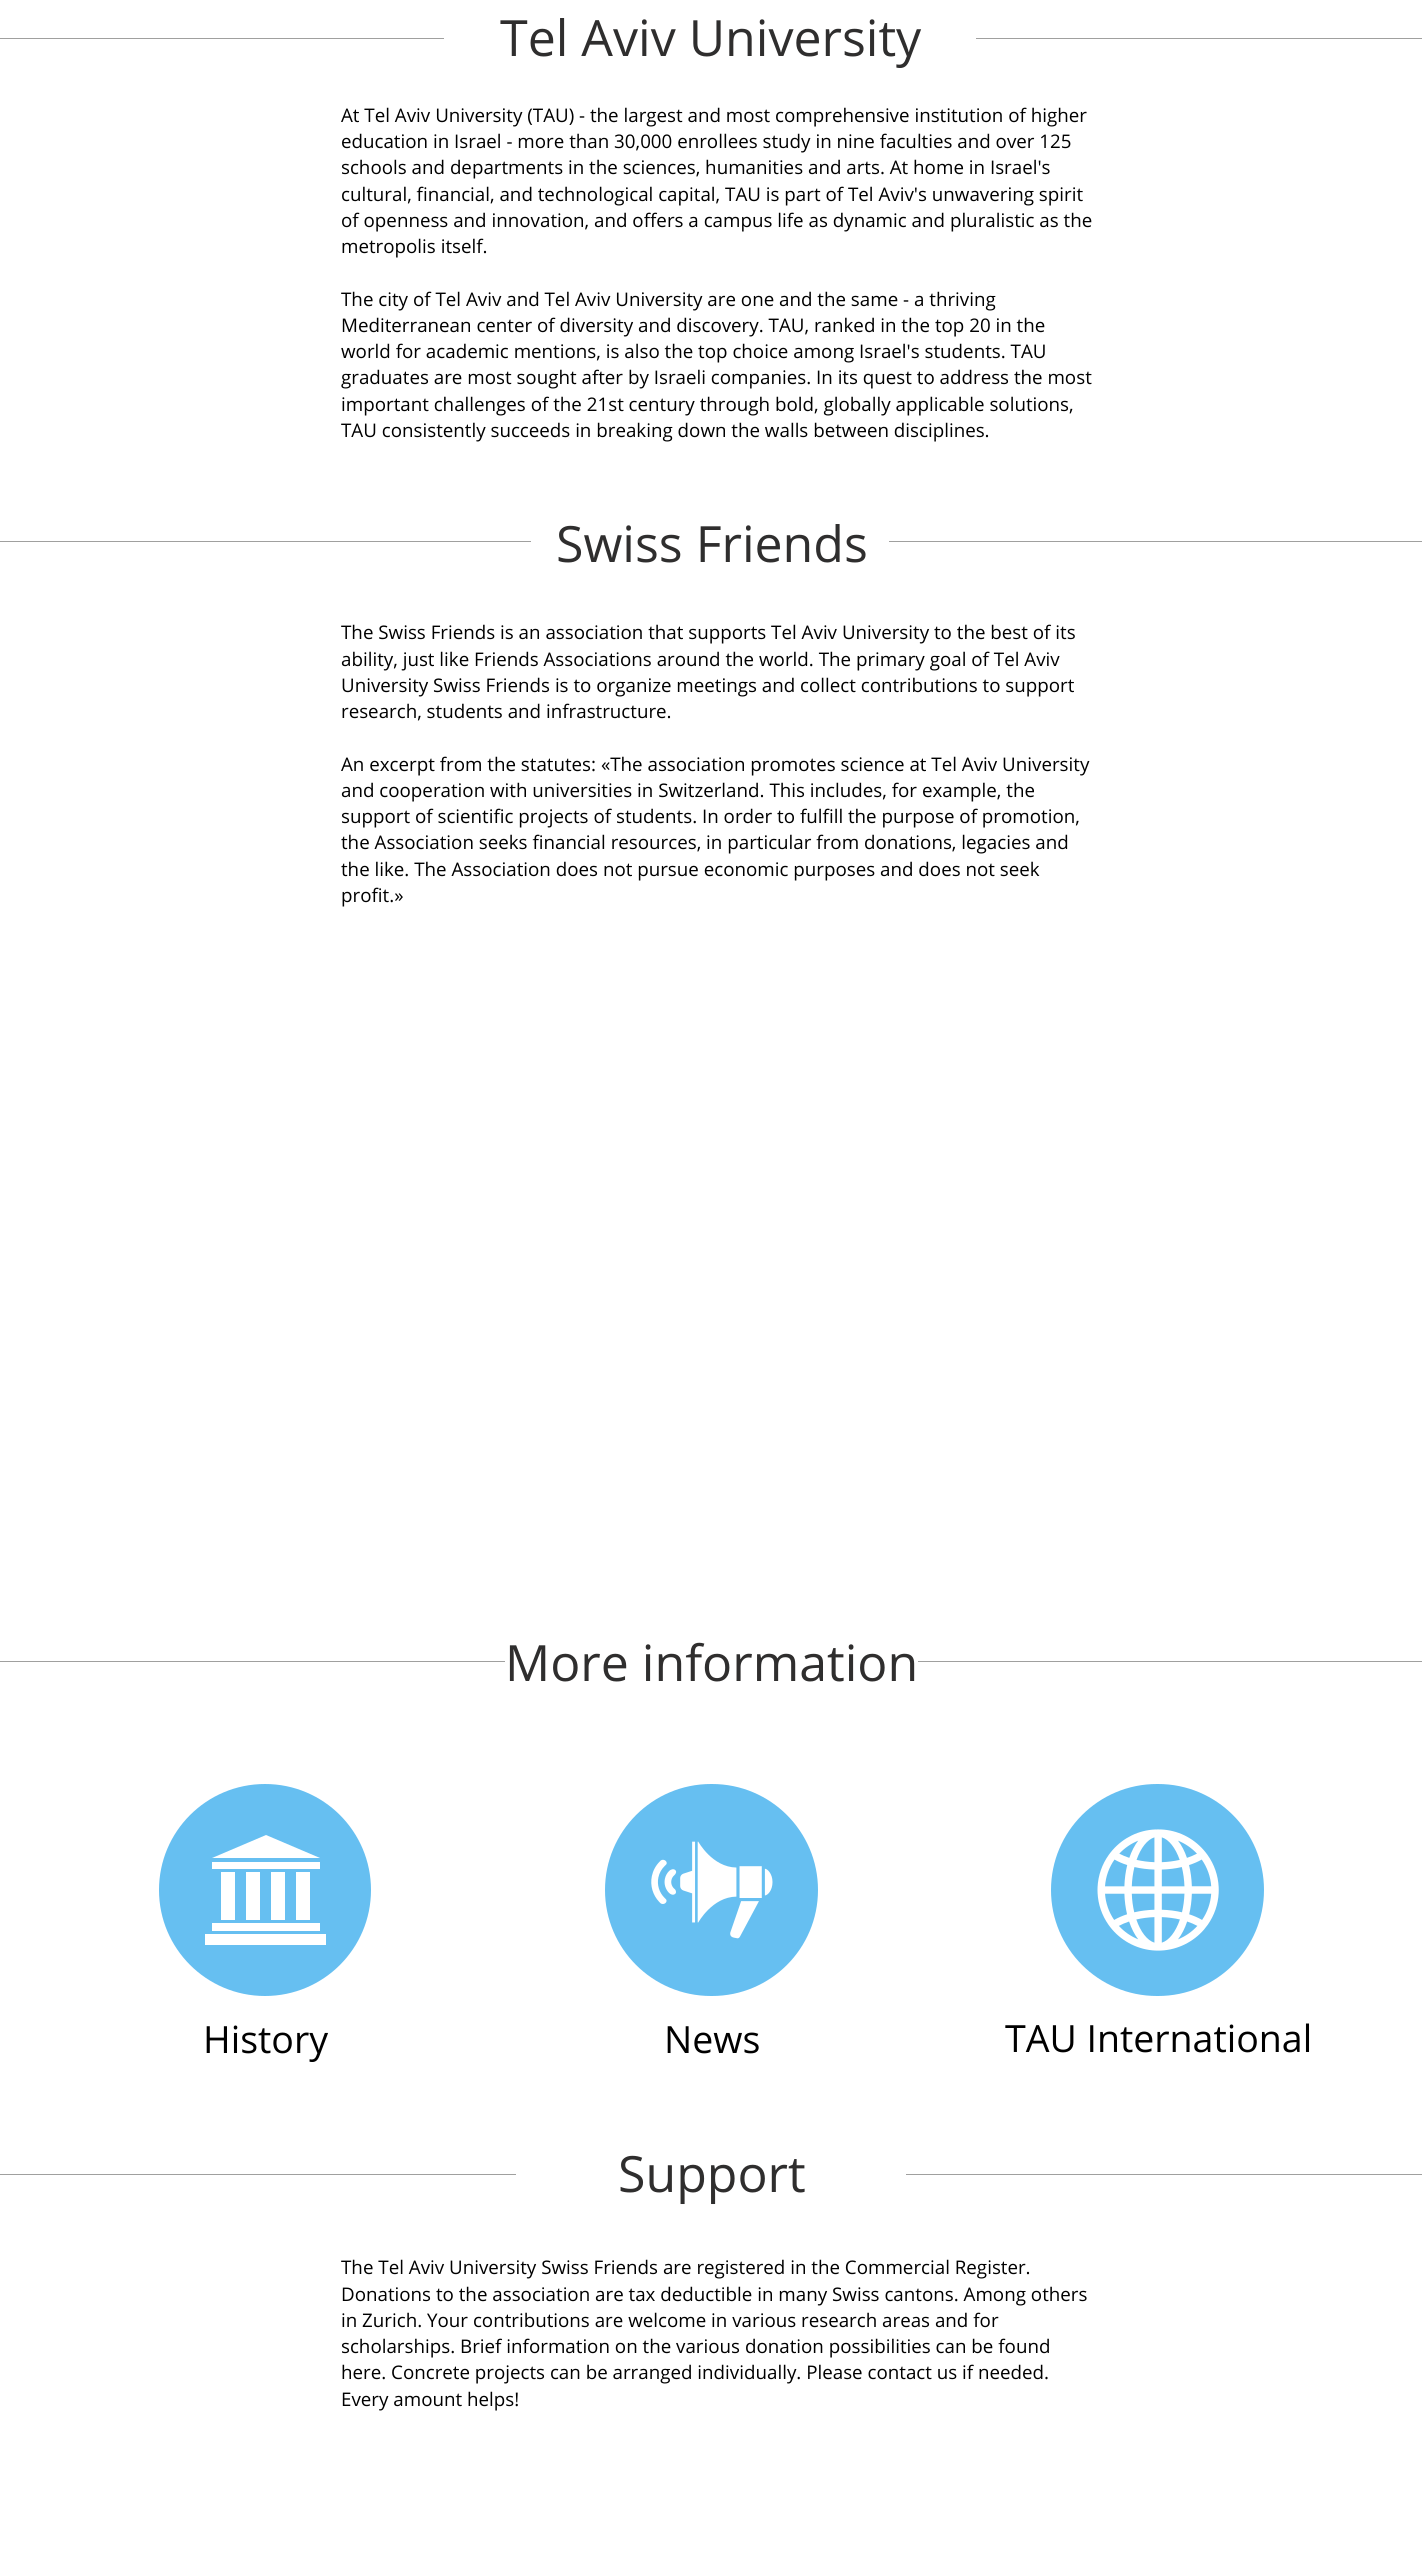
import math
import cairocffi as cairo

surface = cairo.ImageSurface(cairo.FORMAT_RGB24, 1422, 2554)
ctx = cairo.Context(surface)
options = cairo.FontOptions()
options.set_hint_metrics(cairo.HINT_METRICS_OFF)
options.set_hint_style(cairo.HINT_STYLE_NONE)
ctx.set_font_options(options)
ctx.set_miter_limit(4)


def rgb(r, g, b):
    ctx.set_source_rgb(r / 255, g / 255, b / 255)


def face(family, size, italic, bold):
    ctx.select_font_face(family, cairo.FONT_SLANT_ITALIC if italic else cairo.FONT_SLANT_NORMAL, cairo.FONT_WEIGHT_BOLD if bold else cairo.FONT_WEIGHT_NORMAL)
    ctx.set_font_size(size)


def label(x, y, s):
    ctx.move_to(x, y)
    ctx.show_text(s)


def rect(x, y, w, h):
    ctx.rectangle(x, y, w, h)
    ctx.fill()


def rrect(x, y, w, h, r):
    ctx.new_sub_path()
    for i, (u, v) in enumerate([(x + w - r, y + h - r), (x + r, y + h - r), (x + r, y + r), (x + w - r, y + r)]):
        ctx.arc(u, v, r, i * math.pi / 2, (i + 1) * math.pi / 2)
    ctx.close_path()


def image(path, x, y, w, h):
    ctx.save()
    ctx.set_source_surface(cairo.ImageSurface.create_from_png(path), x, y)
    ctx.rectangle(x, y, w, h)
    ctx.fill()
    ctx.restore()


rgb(255, 255, 255)
ctx.paint()
rgb(160, 160, 159)
rect(0, 38, 1422, 1)
rgb(255, 255, 255)
rect(444, 38, 532, 1)
face('Open Sans', 50, 0, 0)
rgb(47, 46, 46)
label(500, 56, 'Tel Aviv University')
face('Open Sans', 18.75, 0, 0)
rgb(0, 0, 0)
label(341, 122, 'At Tel Aviv University (TAU) - the largest and most comprehensive institution of higher')
label(341, 148, 'education in Israel - more than 30,000 enrollees study in nine faculties and over 125')
label(341, 174, 'schools and departments in the sciences, humanities and arts. At home in Israel\'s')
label(341, 201, 'cultural, financial, and technological capital, TAU is part of Tel Aviv\'s unwavering spirit')
label(341, 227, 'of openness and innovation, and offers a campus life as dynamic and pluralistic as the')
label(341, 253, 'metropolis itself.')
label(341, 306, 'The city of Tel Aviv and Tel Aviv University are one and the same - a thriving')
label(341, 332, 'Mediterranean center of diversity and discovery. TAU, ranked in the top 20 in the')
label(341, 358, 'world for academic mentions, is also the top choice among Israel\'s students. TAU')
label(341, 384, 'graduates are most sought after by Israeli companies. In its quest to address the most')
label(341, 411, 'important challenges of the 21st century through bold, globally applicable solutions,')
label(341, 437, 'TAU consistently succeeds in breaking down the walls between disciplines.')
rgb(160, 160, 159)
rect(0, 541, 1422, 1)
rgb(255, 255, 255)
rect(531, 541, 358, 1)
face('Open Sans', 50, 0, 0)
rgb(47, 46, 46)
label(556, 562, 'Swiss Friends')
face('Open Sans', 18.75, 0, 0)
rgb(0, 0, 0)
label(341, 639, 'The Swiss Friends is an association that supports Tel Aviv University to the best of its')
label(341, 666, 'ability, just like Friends Associations around the world. The primary goal of Tel Aviv')
label(341, 692, 'University Swiss Friends is to organize meetings and collect contributions to support')
label(341, 718, 'research, students and infrastructure.')
label(341, 771, 'An excerpt from the statutes: «The association promotes science at Tel Aviv University')
label(341, 797, 'and cooperation with universities in Switzerland. This includes, for example, the')
label(341, 823, 'support of scientific projects of students. In order to fulfill the purpose of promotion,')
label(341, 849, 'the Association seeks financial resources, in particular from donations, legacies and')
label(341, 876, 'the like. The Association does not pursue economic purposes and does not seek')
label(341, 902, 'profit.»')
rgb(160, 160, 159)
rect(0, 1661, 1422, 1)
rgb(255, 255, 255)
rect(505, 1661, 413, 1)
face('Open Sans', 50, 0, 0)
rgb(47, 46, 46)
label(505, 1681, 'More information')
rgb(102, 191, 241)
ctx.new_path()
ctx.arc(265, 1890, 106, 0, 2 * math.pi)
ctx.fill()
rgb(255, 255, 255)
ctx.new_path()
ctx.move_to(212, 1858)
ctx.line_to(266, 1835)
ctx.line_to(320, 1858)
ctx.close_path()
ctx.move_to(320, 1862)
ctx.line_to(212, 1862)
ctx.line_to(212, 1869)
ctx.line_to(320, 1869)
ctx.close_path()
ctx.move_to(320, 1923)
ctx.line_to(212, 1923)
ctx.line_to(212, 1931)
ctx.line_to(320, 1931)
ctx.close_path()
ctx.move_to(326, 1934)
ctx.line_to(205, 1934)
ctx.line_to(205, 1945)
ctx.line_to(326, 1945)
ctx.close_path()
ctx.move_to(285, 1920)
ctx.line_to(285, 1872)
ctx.line_to(271, 1872)
ctx.line_to(271, 1920)
ctx.close_path()
ctx.move_to(310, 1920)
ctx.line_to(310, 1872)
ctx.line_to(296, 1872)
ctx.line_to(296, 1920)
ctx.close_path()
ctx.move_to(260, 1920)
ctx.line_to(260, 1872)
ctx.line_to(246, 1872)
ctx.line_to(246, 1920)
ctx.close_path()
ctx.move_to(235, 1920)
ctx.line_to(235, 1872)
ctx.line_to(221, 1872)
ctx.line_to(221, 1920)
ctx.close_path()
ctx.fill()
rgb(102, 191, 241)
rrect(605, 1784, 213, 212, 106)
ctx.fill()
image('image0.png', 651, 1841, 122, 98)
rrect(1051, 1784, 213, 212, 106)
ctx.fill()
image('image1.png', 1097, 1829, 122, 122)
face('Open Sans', 37.5, 0, 0)
rgb(0, 0, 0)
label(203, 2053, 'History')
label(664, 2053, 'News')
label(1005, 2052, 'TAU International')
rgb(160, 160, 159)
rect(0, 2174, 1422, 1)
rgb(255, 255, 255)
rect(516, 2174, 390, 1)
face('Open Sans', 50, 0, 0)
rgb(47, 46, 46)
label(618, 2192, 'Support')
face('Open Sans', 18.75, 0, 0)
rgb(0, 0, 0)
label(341, 2274, 'The Tel Aviv University Swiss Friends are registered in the Commercial Register.')
label(341, 2301, 'Donations to the association are tax deductible in many Swiss cantons. Among others')
label(341, 2327, 'in Zurich. Your contributions are welcome in various research areas and for')
label(341, 2353, 'scholarships. Brief information on the various donation possibilities can be found')
label(341, 2379, 'here. Concrete projects can be arranged individually. Please contact us if needed.')
label(341, 2406, 'Every amount helps!')
surface.write_to_png('render.png')
